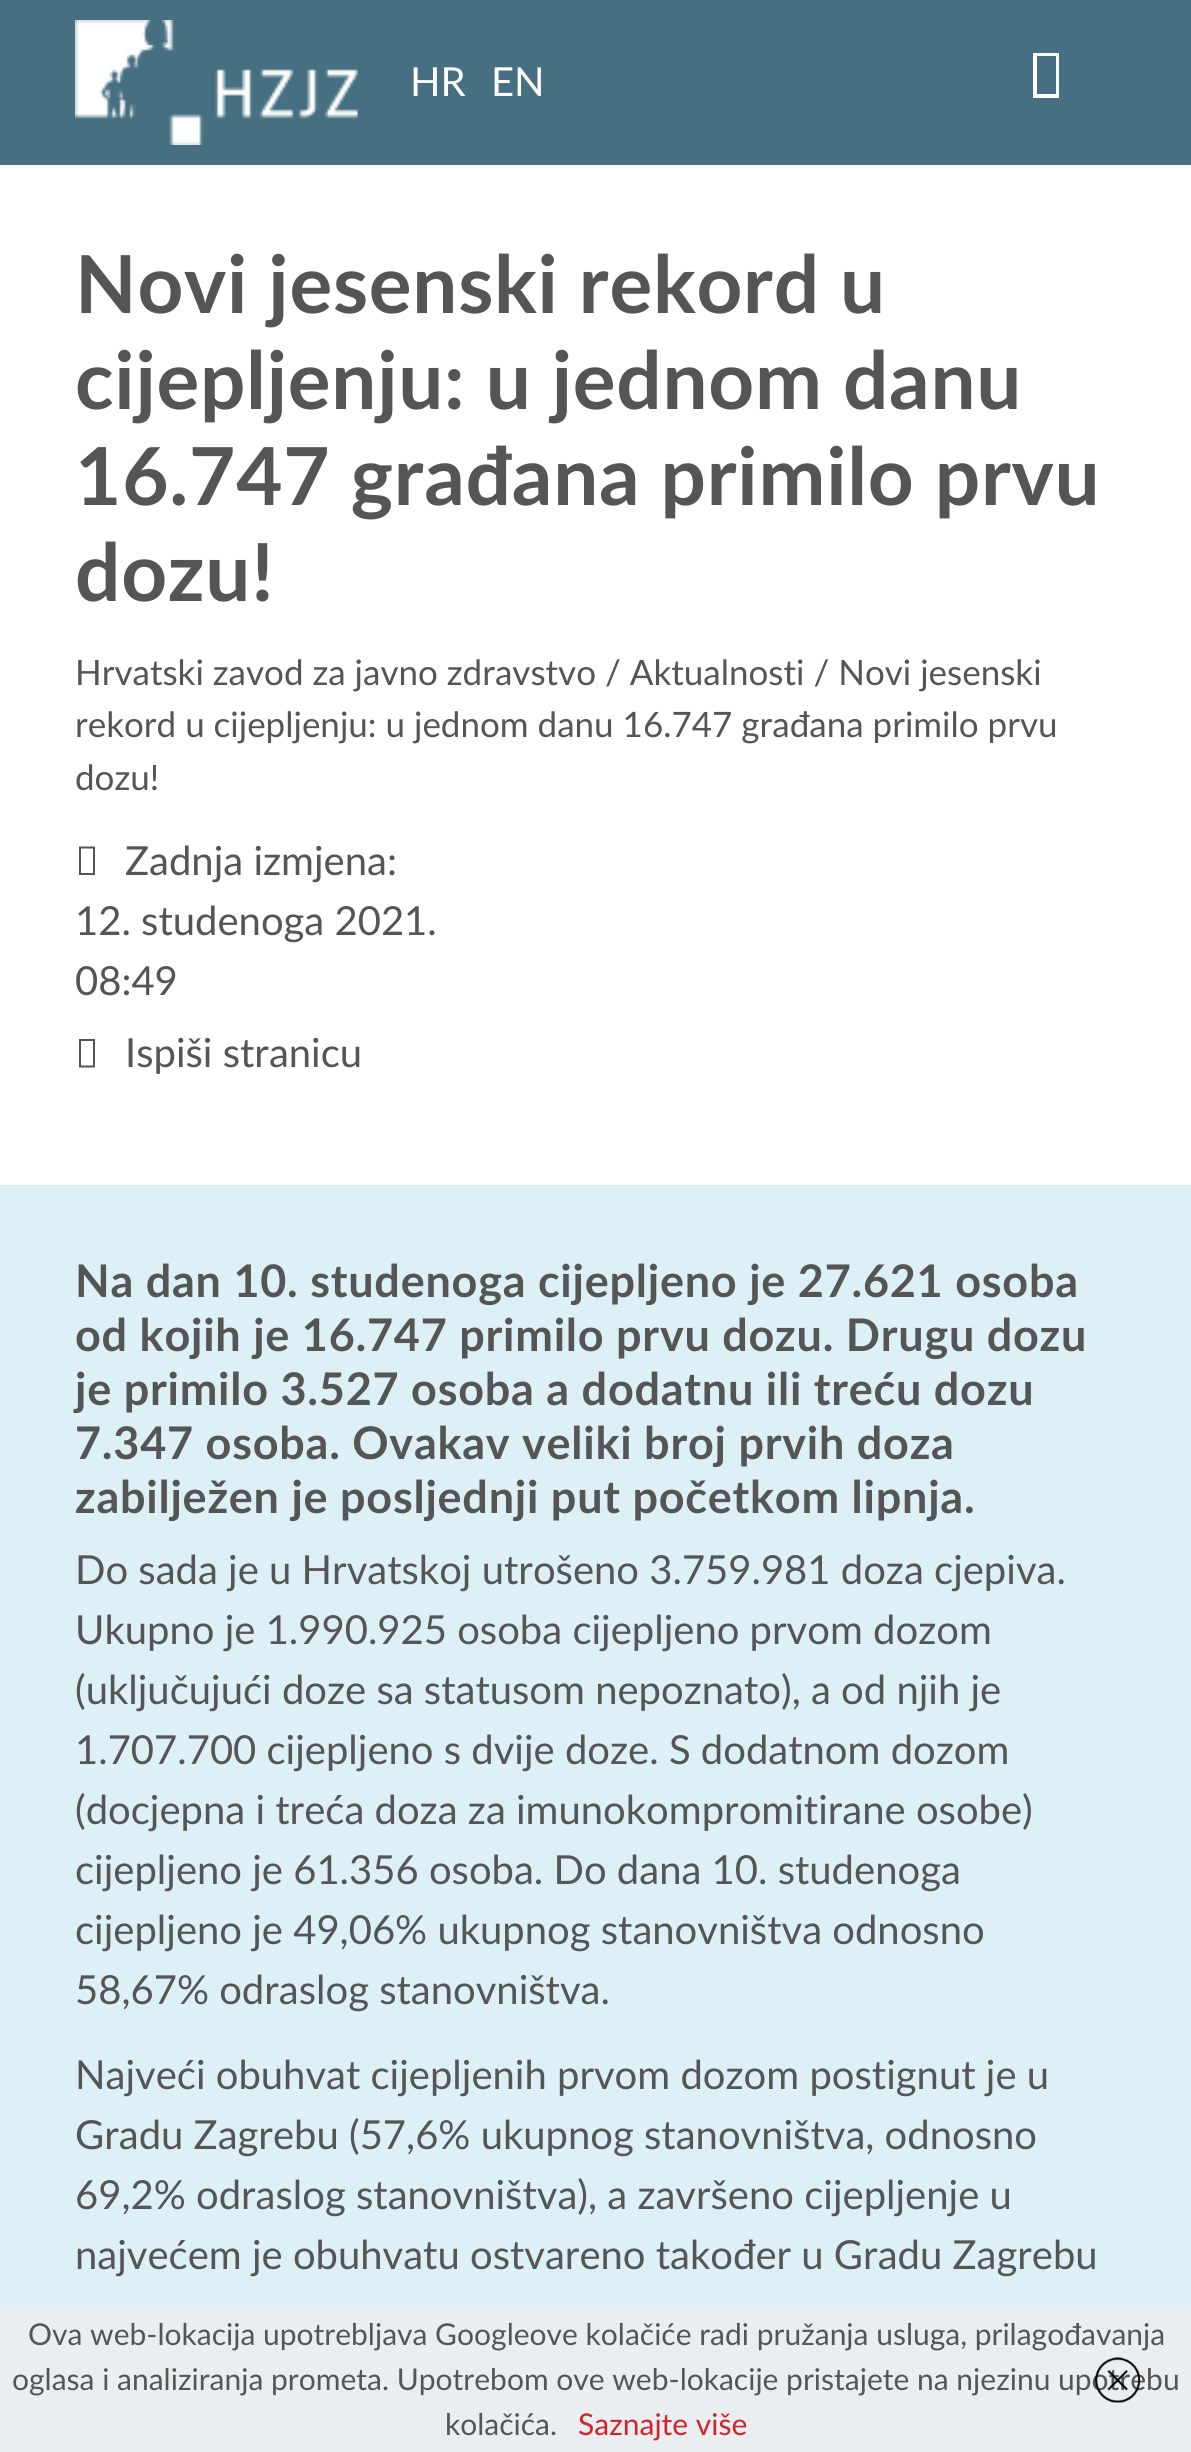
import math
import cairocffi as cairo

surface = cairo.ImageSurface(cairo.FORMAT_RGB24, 1191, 2452)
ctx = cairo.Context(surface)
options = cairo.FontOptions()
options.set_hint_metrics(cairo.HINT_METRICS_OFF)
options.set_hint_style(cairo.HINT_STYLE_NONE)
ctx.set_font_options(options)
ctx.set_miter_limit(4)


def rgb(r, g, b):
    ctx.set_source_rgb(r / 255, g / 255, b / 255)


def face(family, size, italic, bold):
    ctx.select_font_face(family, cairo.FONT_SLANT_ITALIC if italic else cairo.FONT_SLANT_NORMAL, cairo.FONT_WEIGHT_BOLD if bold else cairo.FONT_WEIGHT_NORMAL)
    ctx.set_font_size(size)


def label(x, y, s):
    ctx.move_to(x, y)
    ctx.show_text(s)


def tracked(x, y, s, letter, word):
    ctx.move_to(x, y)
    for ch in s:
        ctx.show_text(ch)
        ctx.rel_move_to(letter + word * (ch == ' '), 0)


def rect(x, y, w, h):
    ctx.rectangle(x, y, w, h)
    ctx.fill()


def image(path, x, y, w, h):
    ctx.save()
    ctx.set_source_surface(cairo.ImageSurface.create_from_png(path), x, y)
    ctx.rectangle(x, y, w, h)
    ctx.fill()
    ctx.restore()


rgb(220, 240, 245)
ctx.paint()
rgb(70, 112, 130)
rect(0, 0, 1191, 165)
image('image0.png', 75, 20, 283, 125)
face('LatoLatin', 40, 0, 0)
rgb(255, 255, 255)
label(410, 96, 'HR')
label(491, 96, 'EN')
ctx.new_path()
ctx.move_to(1033, 98)
ctx.line_to(1033, 53)
ctx.line_to(1059, 53)
ctx.line_to(1059, 98)
ctx.close_path()
ctx.move_to(1037, 94)
ctx.line_to(1056, 94)
ctx.line_to(1056, 56)
ctx.line_to(1037, 56)
ctx.close_path()
ctx.fill()
rect(0, 165, 1191, 1020)
face('LatoLatin', 80, 0, 1)
rgb(85, 85, 85)
tracked(75, 313, 'Novi jesenski rekord u', 0.75, 0)
tracked(75, 409, 'cijepljenju: u jednom danu', 0.75, 0)
tracked(75, 505, '16.747 građana primilo prvu', 0.75, 0)
tracked(75, 601, 'dozu!', 0.75, 0)
face('LatoLatin', 35, 0, 0)
label(75, 685, 'Hrvatski zavod za javno zdravstvo / Aktualnosti / Novi jesenski')
label(75, 737, 'rekord u cijepljenju: u jednom danu 16.747 građana primilo prvu')
label(75, 790, 'dozu!')
ctx.new_path()
ctx.move_to(79, 875)
ctx.line_to(79, 846.5)
ctx.line_to(95, 846.5)
ctx.line_to(95, 875)
ctx.close_path()
ctx.move_to(81, 873)
ctx.line_to(93, 873)
ctx.line_to(93, 848.5)
ctx.line_to(81, 848.5)
ctx.close_path()
ctx.fill()
face('LatoLatin', 40, 0, 0)
label(125, 875, 'Zadnja izmjena:')
label(75, 935, '12. studenoga 2021.')
label(75, 995, '08:49')
ctx.new_path()
ctx.move_to(79, 1067.5)
ctx.line_to(79, 1039)
ctx.line_to(95, 1039)
ctx.line_to(95, 1067.5)
ctx.close_path()
ctx.move_to(81, 1065.5)
ctx.line_to(93, 1065.5)
ctx.line_to(93, 1041)
ctx.line_to(81, 1041)
ctx.close_path()
ctx.fill()
label(125, 1067, 'Ispiši stranicu')
face('LatoLatin', 45, 0, 1)
tracked(75, 1297, 'Na dan 10. studenoga cijepljeno je 27.621 osoba', 0.75, 0)
tracked(75, 1351, 'od kojih je 16.747 primilo prvu dozu. Drugu dozu', 0.75, 0)
tracked(75, 1405, 'je primilo 3.527 osoba a dodatnu ili treću dozu', 0.75, 0)
tracked(75, 1459, '7.347 osoba. Ovakav veliki broj prvih doza', 0.75, 0)
tracked(75, 1513, 'zabilježen je posljednji put početkom lipnja.', 0.75, 0)
face('LatoLatin', 40, 0, 0)
label(75, 1584, 'Do sada je u Hrvatskoj utrošeno 3.759.981 doza cjepiva.')
label(75, 1644, 'Ukupno je 1.990.925 osoba cijepljeno prvom dozom')
label(75, 1704, '(uključujući doze sa statusom nepoznato), a od njih je')
label(75, 1764, '1.707.700 cijepljeno s dvije doze. S dodatnom dozom')
label(75, 1824, '(docjepna i treća doza za imunokompromitirane osobe)')
label(75, 1884, 'cijepljeno je 61.356 osoba. Do dana 10. studenoga')
label(75, 1944, 'cijepljeno je 49,06% ukupnog stanovništva odnosno')
label(75, 2004, '58,67% odraslog stanovništva.')
label(75, 2089, 'Najveći obuhvat cijepljenih prvom dozom postignut je u')
label(75, 2149, 'Gradu Zagrebu (57,6% ukupnog stanovništva, odnosno')
label(75, 2209, '69,2% odraslog stanovništva), a završeno cijepljenje u')
label(75, 2269, 'najvećem je obuhvatu ostvareno također u Gradu Zagrebu')
ctx.set_source_rgba(0.933, 0.933, 0.933, 0.7)
rect(0, 2308, 1191, 144)
face('LatoLatin', 30, 0, 0)
rgb(85, 85, 85)
label(28, 2345, 'Ova web-lokacija upotrebljava Googleove kolačiće radi pružanja usluga, prilagođavanja')
label(12, 2390, 'oglasa i analiziranja prometa. Upotrebom ove web-lokacije pristajete na njezinu upotrebu')
label(445, 2435, 'kolačića.')
rgb(210, 35, 42)
label(578, 2435, 'Saznajte više')
image('image1.png', 1095, 2357, 46, 46)
surface.write_to_png('render.png')
